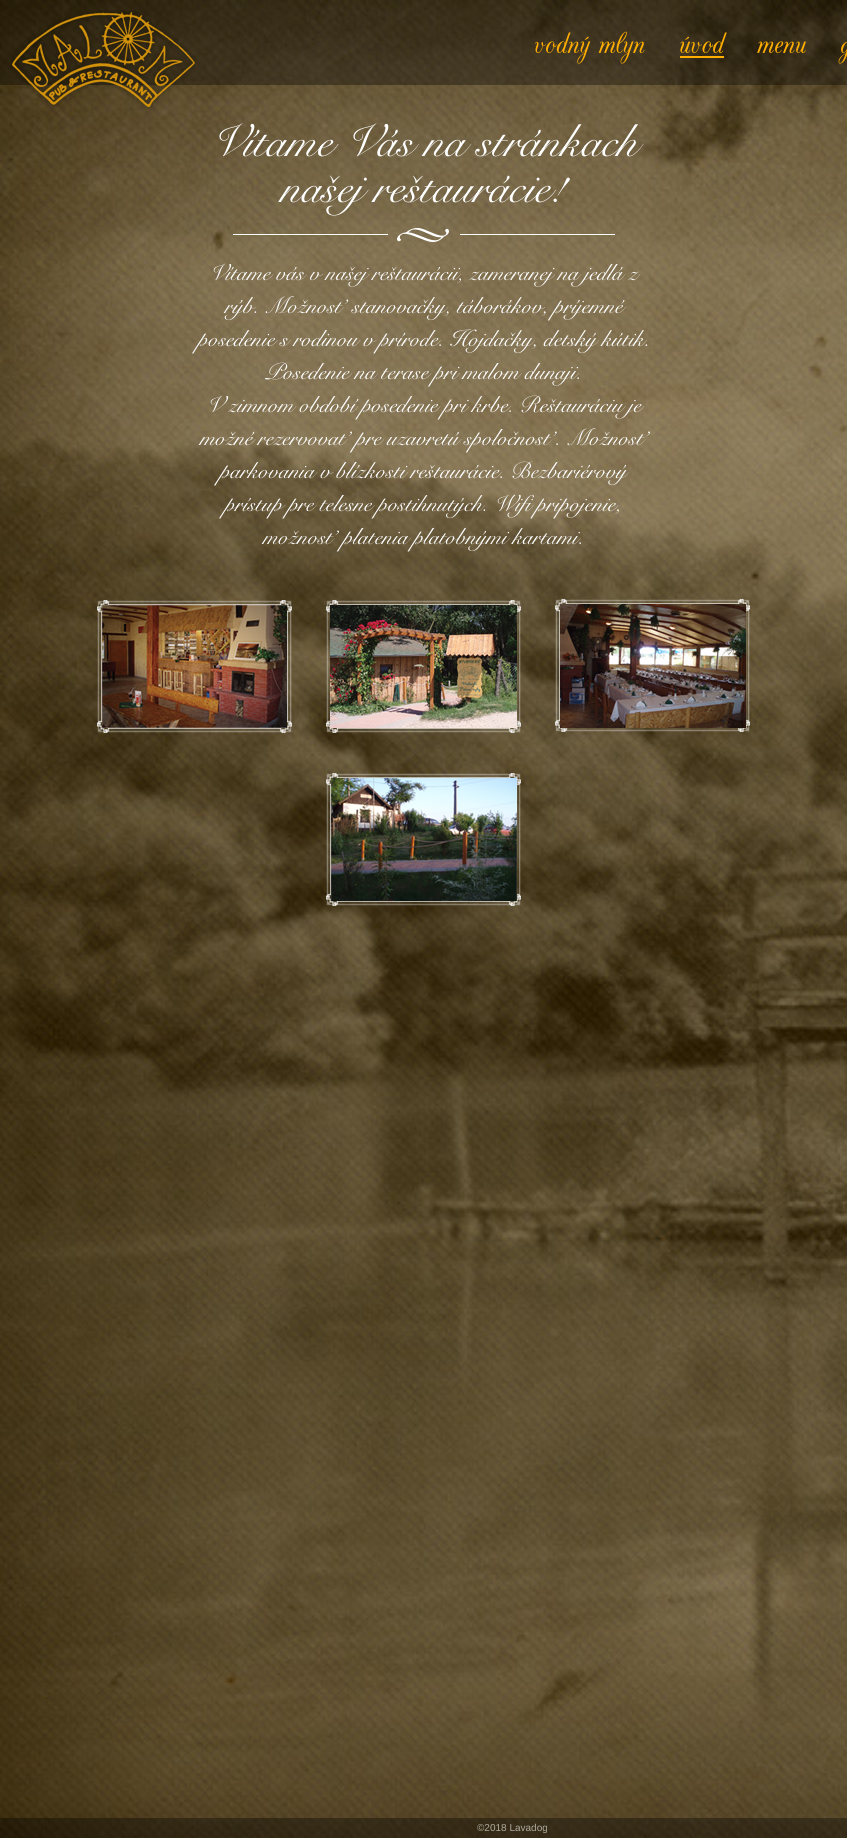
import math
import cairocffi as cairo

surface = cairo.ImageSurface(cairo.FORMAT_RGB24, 847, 1838)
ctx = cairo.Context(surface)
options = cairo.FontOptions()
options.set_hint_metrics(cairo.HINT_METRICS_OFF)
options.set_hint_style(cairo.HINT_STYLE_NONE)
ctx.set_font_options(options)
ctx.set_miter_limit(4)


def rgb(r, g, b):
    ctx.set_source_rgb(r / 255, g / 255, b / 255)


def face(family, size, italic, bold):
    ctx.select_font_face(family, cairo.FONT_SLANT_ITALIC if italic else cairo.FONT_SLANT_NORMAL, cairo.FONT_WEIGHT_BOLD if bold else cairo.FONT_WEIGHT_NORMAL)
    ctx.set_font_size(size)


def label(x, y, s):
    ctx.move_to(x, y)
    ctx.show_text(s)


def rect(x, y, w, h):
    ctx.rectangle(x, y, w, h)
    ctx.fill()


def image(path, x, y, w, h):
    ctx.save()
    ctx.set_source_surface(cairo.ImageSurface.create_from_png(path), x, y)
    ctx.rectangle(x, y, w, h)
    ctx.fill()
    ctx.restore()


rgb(255, 255, 255)
ctx.paint()
image('image0.png', 0, 0, 847, 1838)
ctx.set_source_rgba(0, 0, 0, 0.35)
rect(0, 0, 847, 85)
image('image1.png', 10, 10, 186, 100)
face('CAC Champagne', 36, 0, 0)
rgb(255, 174, 0)
label(534, 53, 'vodný mlyn')
label(679, 53, 'úvod')
label(757, 53, 'menu')
label(840, 53, 'g')
rect(680, 56, 44, 2)
image('image2.png', 233, 228, 382, 14)
face('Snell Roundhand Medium', 46, 1, 0)
rgb(255, 255, 255)
label(210, 156, 'Vítame Vás na stránkach')
label(281, 202, 'našej reštaurácie!')
face('Snell Roundhand Medium', 23, 1, 0)
label(209, 280, 'Vítame vás v našej reštaurácii, zameranej na jedlá z')
label(225, 313, 'rýb. Možnosť stanovačky, táborákov, príjemné')
label(198, 346, 'posedenie s rodinou v prírode. Hojdačky, detský kútik.')
label(265, 379, 'Posedenie na terase pri malom dunaji.')
label(206, 412, 'V zimnom období posedenie pri krbe. Reštauráciu je')
label(200, 445, 'možné rezervovať pre uzavretú spoločnosť. Možnosť')
label(220, 478, 'parkovania v blízkosti reštaurácie. Bezbariérový')
label(225, 511, 'prístup pre telesne postihnutých. Wifi pripojenie,')
label(263, 544, 'možnosť platenia platobnými kartami.')
image('image3.png', 97, 600, 195, 133)
image('image4.png', 102, 605, 185, 123)
image('image5.png', 326, 600, 195, 133)
image('image6.png', 330, 605, 187, 123)
image('image7.png', 555, 599, 195, 133)
image('image8.png', 560, 604, 186, 124)
image('image9.png', 326, 773, 195, 133)
image('image10.png', 331, 778, 186, 123)
ctx.set_source_rgba(0, 0, 0, 0.35)
rect(0, 1818, 847, 20)
face('Liberation Sans', 10, 0, 0)
rgb(176, 170, 158)
label(477, 1831, '©2018 Lavadog')
surface.write_to_png('render.png')
